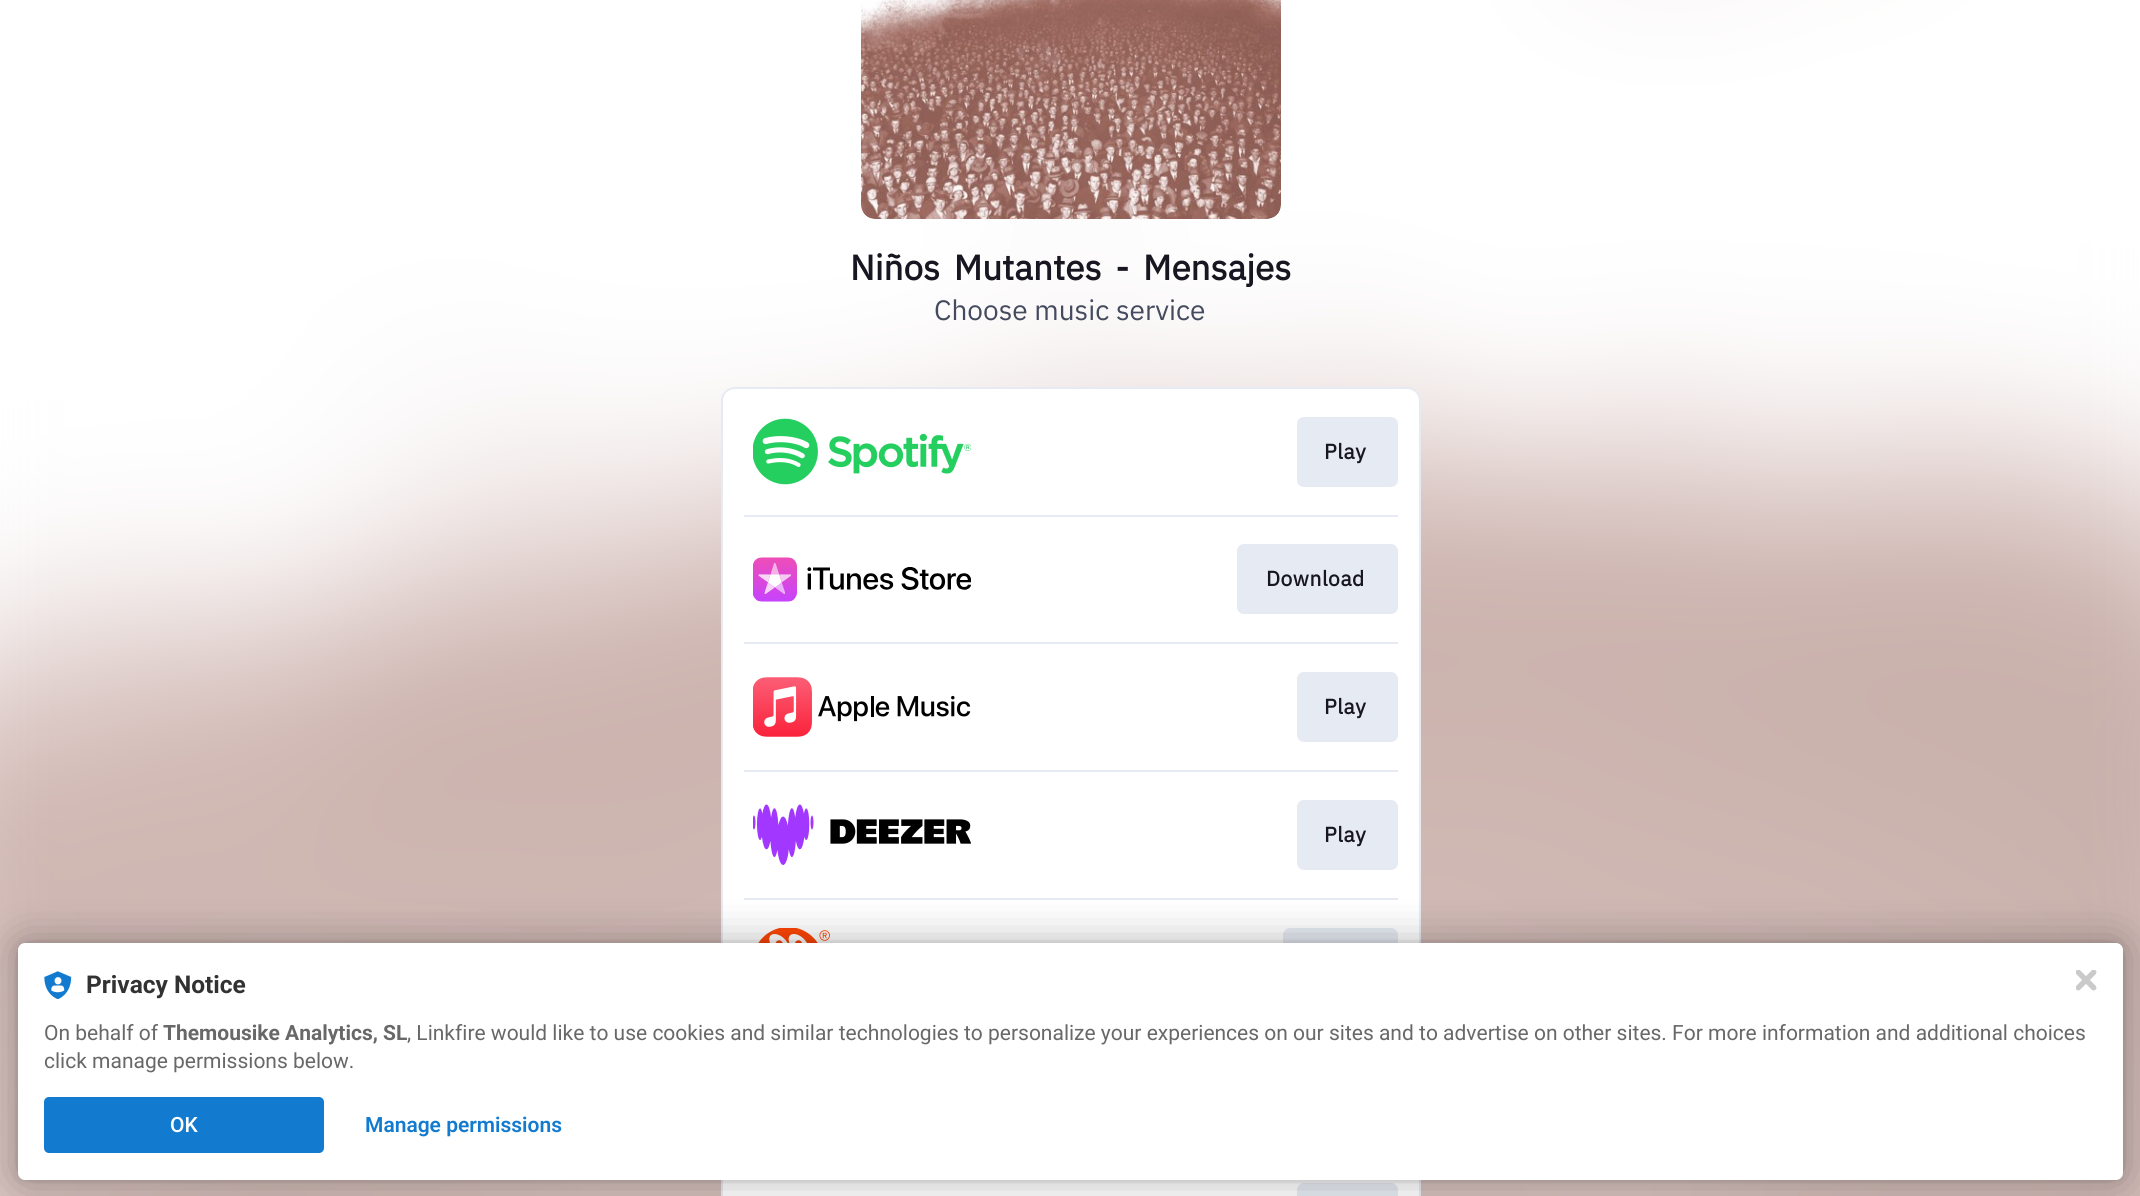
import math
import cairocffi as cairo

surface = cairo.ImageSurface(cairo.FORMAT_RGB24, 2140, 1196)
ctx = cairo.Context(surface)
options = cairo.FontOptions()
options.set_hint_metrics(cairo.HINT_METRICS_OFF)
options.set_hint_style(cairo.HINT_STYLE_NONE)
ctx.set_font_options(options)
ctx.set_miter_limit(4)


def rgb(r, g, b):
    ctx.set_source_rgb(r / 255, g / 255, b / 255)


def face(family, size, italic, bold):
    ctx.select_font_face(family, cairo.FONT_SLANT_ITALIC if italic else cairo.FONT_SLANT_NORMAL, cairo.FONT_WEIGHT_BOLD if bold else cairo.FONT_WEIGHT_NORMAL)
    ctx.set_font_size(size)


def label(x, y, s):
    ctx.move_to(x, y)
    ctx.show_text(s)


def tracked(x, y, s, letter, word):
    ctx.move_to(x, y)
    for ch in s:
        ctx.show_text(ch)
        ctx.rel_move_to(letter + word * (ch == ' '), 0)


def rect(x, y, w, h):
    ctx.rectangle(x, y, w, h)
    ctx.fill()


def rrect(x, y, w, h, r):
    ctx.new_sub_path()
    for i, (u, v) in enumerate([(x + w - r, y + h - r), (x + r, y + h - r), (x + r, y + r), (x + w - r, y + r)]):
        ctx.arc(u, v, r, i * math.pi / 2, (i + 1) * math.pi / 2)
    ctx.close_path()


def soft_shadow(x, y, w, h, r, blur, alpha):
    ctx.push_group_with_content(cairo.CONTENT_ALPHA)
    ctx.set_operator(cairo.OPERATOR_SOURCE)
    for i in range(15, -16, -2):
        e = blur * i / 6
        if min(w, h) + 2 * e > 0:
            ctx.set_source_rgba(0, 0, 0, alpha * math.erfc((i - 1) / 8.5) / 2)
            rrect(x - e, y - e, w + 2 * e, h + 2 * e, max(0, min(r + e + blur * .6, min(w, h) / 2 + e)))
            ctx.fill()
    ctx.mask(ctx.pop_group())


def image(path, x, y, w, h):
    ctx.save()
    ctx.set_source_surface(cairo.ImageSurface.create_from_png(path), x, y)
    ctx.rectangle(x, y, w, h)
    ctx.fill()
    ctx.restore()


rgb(255, 255, 255)
ctx.paint()
image('image0.png', 0, 0, 2140, 1196)
image('image1.png', 861, 0, 420, 219)
face('IBM Plex Sans', 35, 0, 1)
rgb(24, 23, 33)
tracked(850, 280, 'Niños Mutantes - Mensajes', 0, 5.5)
face('IBM Plex Sans', 28, 0, 0)
rgb(69, 75, 95)
label(934, 320, 'Choose music service')
rrect(722, 388, 698, 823, 13)
rgb(230, 234, 242)
ctx.stroke()
rgb(255, 255, 255)
rrect(723, 389, 696, 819, 12)
ctx.fill()
image('image2.png', 753, 418, 218, 67)
rgb(230, 234, 242)
rrect(1297, 417, 101, 70, 7)
ctx.fill()
face('IBM Plex Sans', 21, 0, 1)
rgb(24, 23, 33)
tracked(1324, 459, 'Play', 0.5, 0)
rgb(230, 234, 242)
rect(744, 515, 654, 2)
image('image3.png', 753, 557, 218, 45)
rrect(1237, 544, 161, 70, 7)
ctx.fill()
rgb(24, 23, 33)
tracked(1266, 586, 'Download', 0.5, 0)
rgb(230, 234, 242)
rect(744, 642, 654, 2)
image('image4.png', 753, 677, 218, 60)
rrect(1297, 672, 101, 70, 7)
ctx.fill()
rgb(24, 23, 33)
tracked(1324, 714, 'Play', 0.5, 0)
rgb(230, 234, 242)
rect(744, 770, 654, 2)
image('image5.png', 753, 804, 218, 61)
rrect(1297, 800, 101, 70, 7)
ctx.fill()
rgb(24, 23, 33)
tracked(1324, 842, 'Play', 0.5, 0)
rgb(230, 234, 242)
rect(744, 898, 654, 2)
image('image6.png', 758, 928, 72, 15)
rrect(1283, 928, 115, 70, 7)
ctx.fill()
rrect(1297, 1183, 101, 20, 7)
ctx.fill()
rgb(0, 0, 0)
soft_shadow(18, 943, 2105, 237, 7, 3.5, 0.12)
soft_shadow(18, 943, 2105, 237, 7, 21, 0.3)
rgb(255, 255, 255)
rrect(18, 943, 2105, 237, 7)
ctx.fill()
image('image7.png', 44, 971, 28, 28)
face('Roboto', 24.5, 0, 1)
rgb(50, 50, 50)
label(86, 993, 'Privacy Notice')
face('Roboto', 21, 0, 0)
rgb(104, 104, 104)
label(44, 1040, 'On behalf of')
face('Roboto', 21, 0, 1)
label(163, 1040, 'Themousike Analytics, SL')
face('Roboto', 21, 0, 0)
label(407, 1040, ', Linkfire would like to use cookies and similar technologies to personalize your experiences on our sites and to advertise on other sites. For more information and additional choices')
label(44, 1068, 'click manage permissions below.')
rgb(19, 123, 207)
rrect(44, 1097, 280, 56, 5)
ctx.fill()
face('Roboto Medium', 21, 0, 0)
rgb(255, 255, 255)
label(170, 1132, 'OK')
face('Roboto SemiBold', 21, 0, 0)
rgb(19, 123, 207)
label(365, 1132, 'Manage permissions')
image('image8.png', 2076, 970, 21, 21)
surface.write_to_png('render.png')
